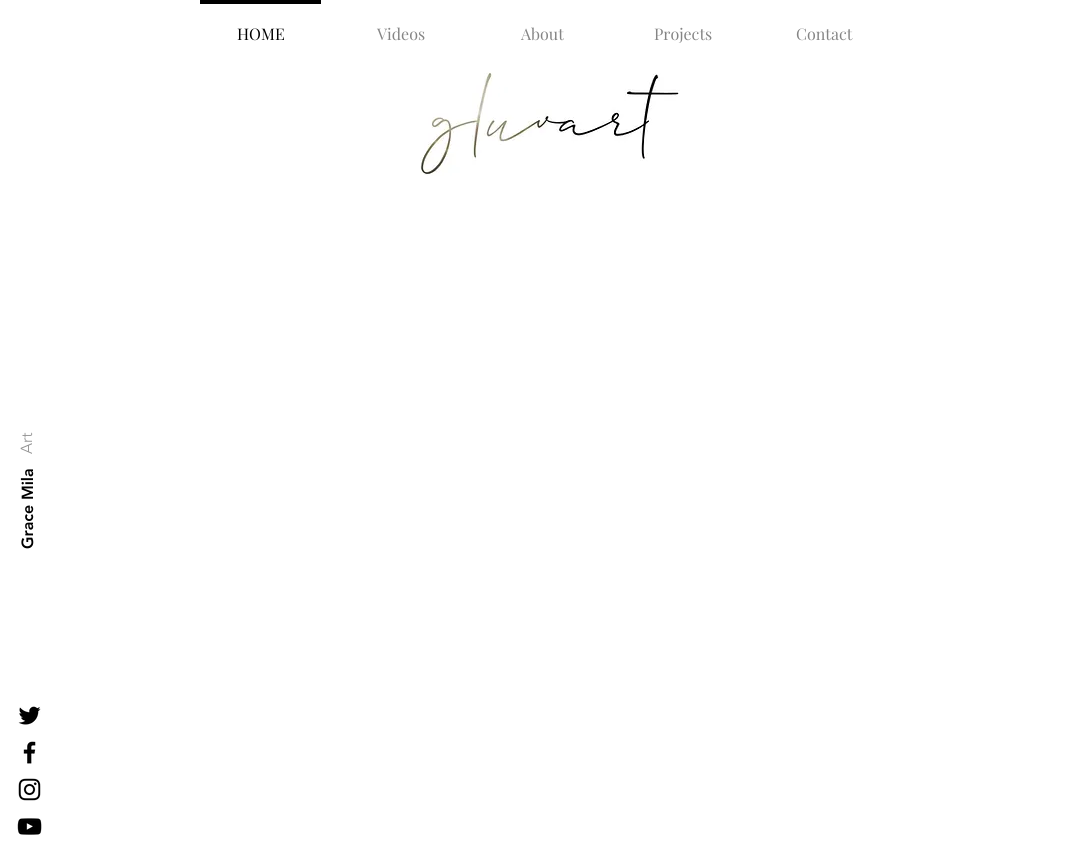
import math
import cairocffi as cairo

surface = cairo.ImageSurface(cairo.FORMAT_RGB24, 1084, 860)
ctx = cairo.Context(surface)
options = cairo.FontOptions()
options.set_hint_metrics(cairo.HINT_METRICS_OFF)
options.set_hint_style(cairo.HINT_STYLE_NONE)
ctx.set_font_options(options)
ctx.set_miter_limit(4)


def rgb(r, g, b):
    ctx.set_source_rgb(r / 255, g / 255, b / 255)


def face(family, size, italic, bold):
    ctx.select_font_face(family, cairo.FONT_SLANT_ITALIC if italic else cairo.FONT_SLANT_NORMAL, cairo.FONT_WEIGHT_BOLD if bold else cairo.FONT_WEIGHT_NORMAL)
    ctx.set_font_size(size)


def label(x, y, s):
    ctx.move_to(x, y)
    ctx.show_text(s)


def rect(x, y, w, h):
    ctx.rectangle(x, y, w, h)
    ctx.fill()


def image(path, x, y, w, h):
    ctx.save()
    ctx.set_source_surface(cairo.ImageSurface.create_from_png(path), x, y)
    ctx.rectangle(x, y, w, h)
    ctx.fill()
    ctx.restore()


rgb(255, 255, 255)
ctx.paint()
rgb(0, 0, 0)
rect(200, 0, 121, 4)
face('Playfair Display', 16, 0, 0)
label(237, 40, 'HOME')
rgb(133, 133, 133)
label(377, 40, 'Videos')
label(521, 40, 'About')
label(654, 40, 'Projects')
label(796, 40, 'Contact')
image('image0.png', 420, 72, 260, 104)
face('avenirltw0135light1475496 Light', 16, 0, 0)
rgb(148, 148, 148)
ctx.save()
ctx.translate(32, 454)
ctx.rotate(-90 * math.pi / 180)
label(0, 0, 'Art')
ctx.restore()
face('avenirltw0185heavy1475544 Black', 16, 0, 0)
rgb(0, 0, 0)
ctx.save()
ctx.translate(33, 549)
ctx.rotate(-90 * math.pi / 180)
label(0, 0, 'Grace Mila')
ctx.restore()
image('image1.png', 18, 706, 23, 19)
image('image2.png', 23, 741, 13, 23)
image('image3.png', 18, 778, 23, 23)
image('image4.png', 17, 818, 25, 17)
surface.write_to_png('render.png')
